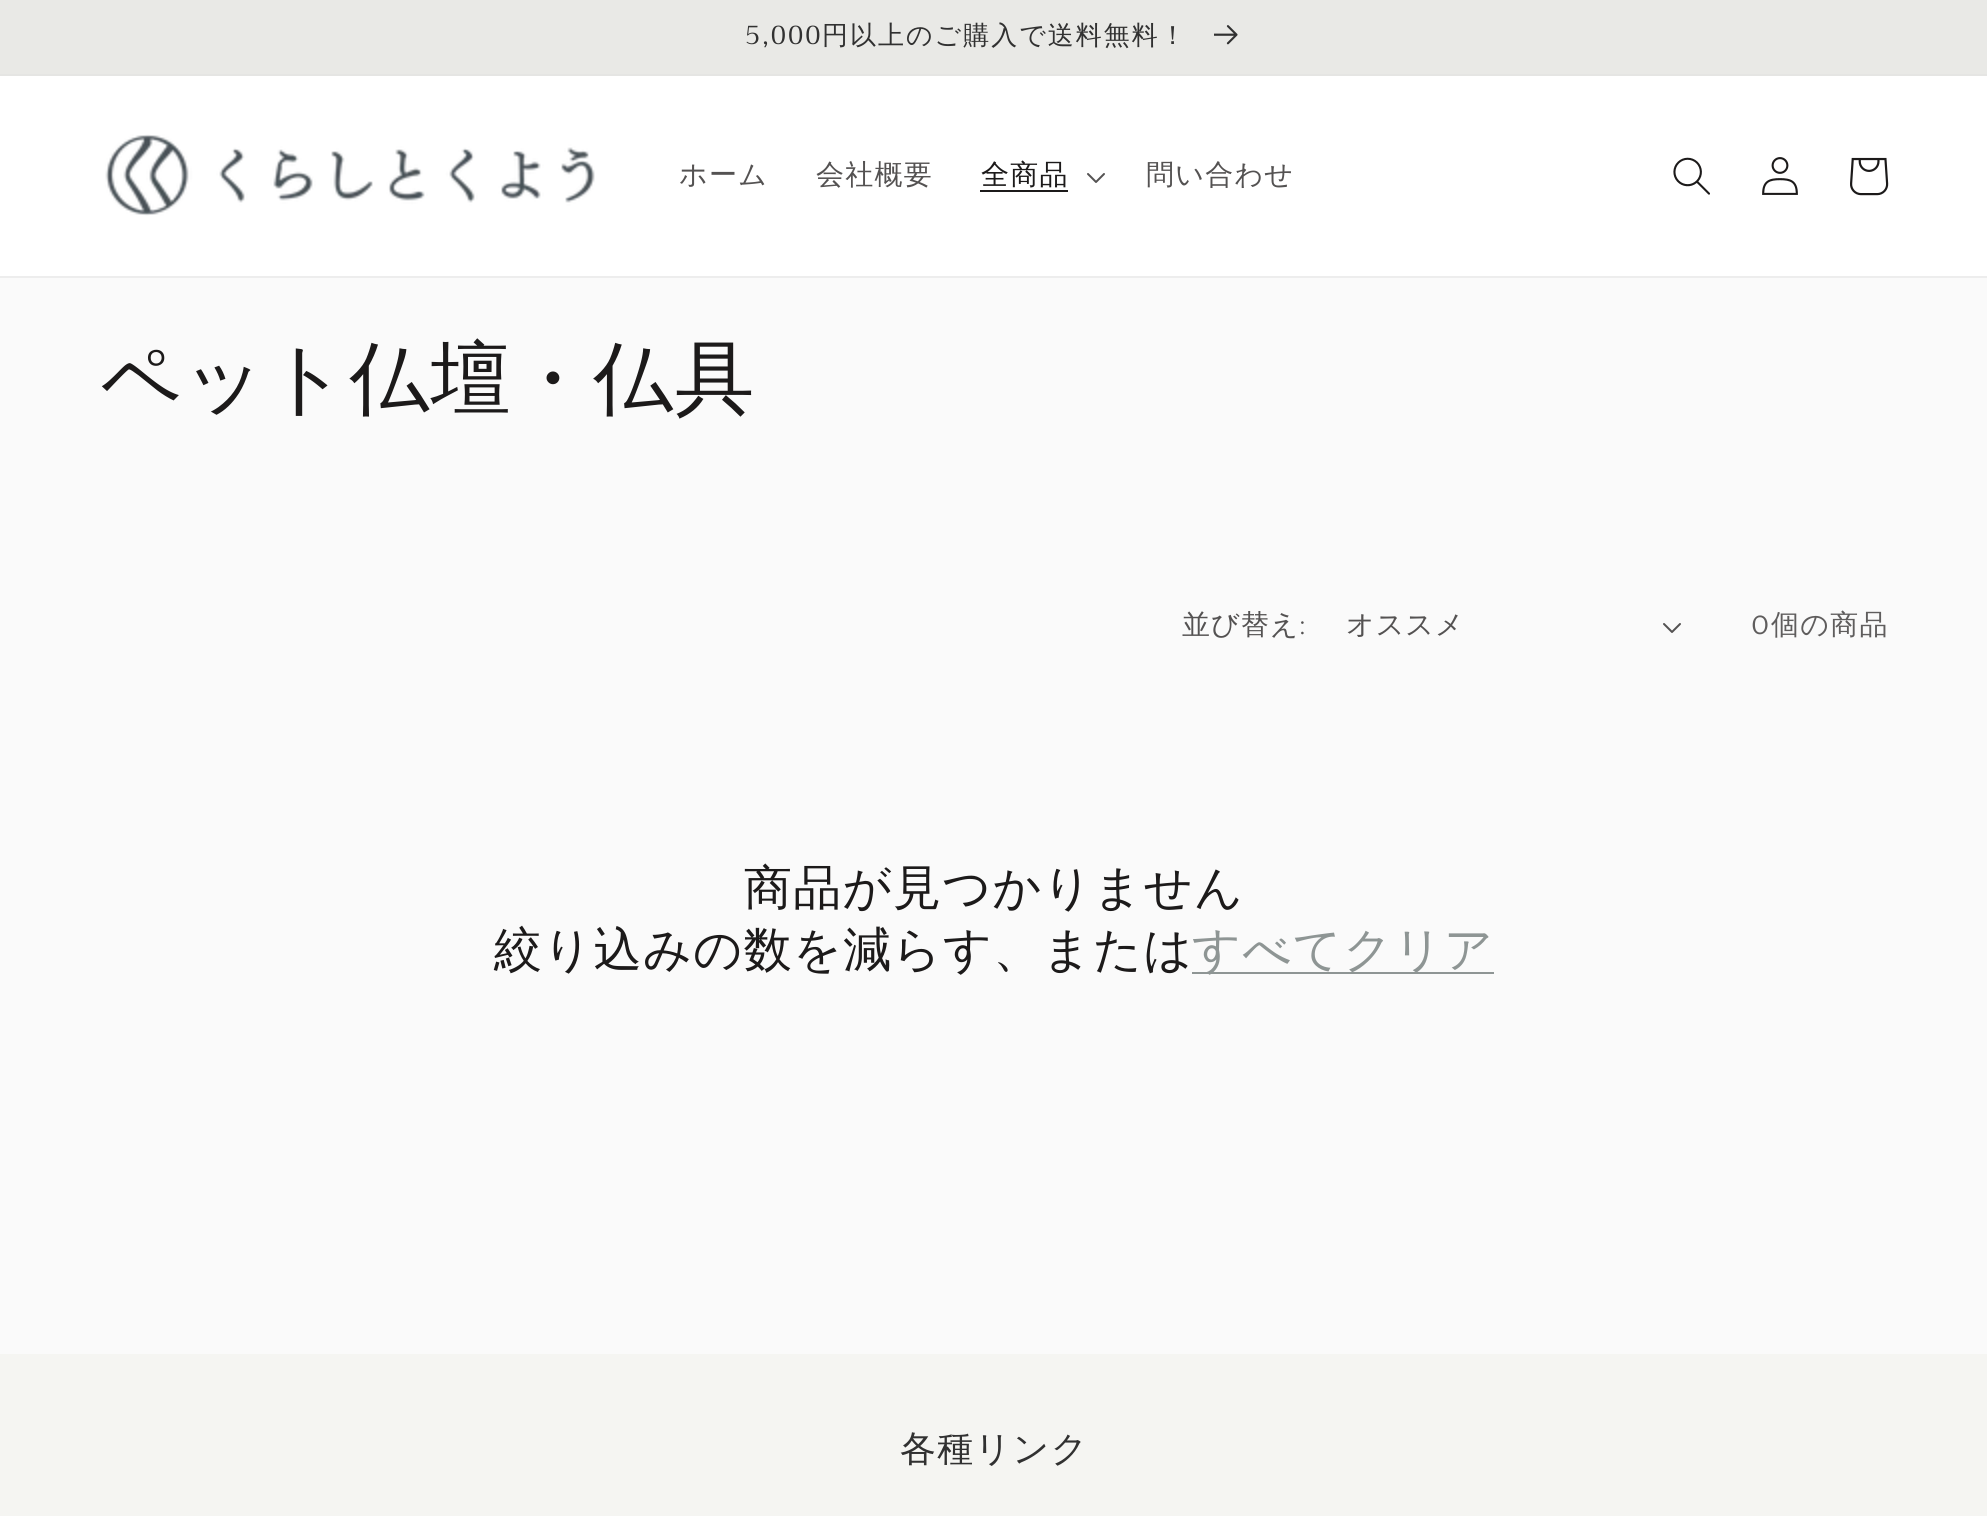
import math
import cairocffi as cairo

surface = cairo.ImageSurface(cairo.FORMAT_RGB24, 1987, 1516)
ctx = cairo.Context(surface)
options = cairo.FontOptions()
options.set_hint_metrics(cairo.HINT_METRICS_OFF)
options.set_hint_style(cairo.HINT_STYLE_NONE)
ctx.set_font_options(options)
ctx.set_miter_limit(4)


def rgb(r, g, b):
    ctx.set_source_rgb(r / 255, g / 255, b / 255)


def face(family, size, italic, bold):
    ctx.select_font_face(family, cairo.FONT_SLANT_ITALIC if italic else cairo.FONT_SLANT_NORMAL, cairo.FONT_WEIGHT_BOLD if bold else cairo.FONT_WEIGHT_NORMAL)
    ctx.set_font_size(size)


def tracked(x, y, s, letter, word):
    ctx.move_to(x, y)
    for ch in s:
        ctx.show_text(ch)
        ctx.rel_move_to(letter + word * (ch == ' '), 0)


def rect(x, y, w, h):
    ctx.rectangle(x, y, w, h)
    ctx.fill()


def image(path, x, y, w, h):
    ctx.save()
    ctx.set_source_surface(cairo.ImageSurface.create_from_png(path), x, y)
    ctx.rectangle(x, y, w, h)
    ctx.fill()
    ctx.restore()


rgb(250, 250, 250)
ctx.paint()
rgb(229, 229, 227)
rect(0, 74, 1987, 2)
rgb(233, 233, 230)
rect(0, 0, 1987, 74)
face('Trirong', 26, 0, 0)
rgb(49, 49, 49)
tracked(745, 44, '5,000', 2, 0)
face('WenQuanYi Zen Hei Medium', 26, 0, 0)
tracked(822, 44, '円以上のご購入で送料無料！', 2, 0)
image('image0.png', 1214, 25, 24, 20)
rgb(255, 255, 255)
rect(0, 76, 1987, 200)
rgb(237, 237, 237)
rect(0, 276, 1987, 2)
image('image1.png', 105, 134, 490, 82)
face('WenQuanYi Zen Hei Medium', 28, 0, 0)
rgb(84, 82, 82)
tracked(679, 184, 'ホーム', 1.25, 0)
tracked(816, 184, '会社概要', 1.25, 0)
rgb(28, 26, 26)
tracked(981, 184, '全商品', 1.25, 0)
rect(980, 190, 88, 2)
image('image2.png', 1087, 173, 18, 10)
rgb(84, 82, 82)
tracked(1146, 184, '問い合わせ', 1.25, 0)
image('image3.png', 1673, 157, 37, 38)
image('image4.png', 1762, 157, 36, 38)
image('image5.png', 1850, 157, 39, 39)
face('WenQuanYi Zen Hei Medium', 80, 0, 0)
rgb(28, 26, 26)
tracked(100, 406, 'ペット仏壇・仏具', 1.25, 0)
face('WenQuanYi Zen Hei Medium', 28, 0, 0)
rgb(84, 82, 82)
tracked(1182, 634, '並び替え', 1, 0)
face('Quattrocento Sans', 28, 0, 0)
tracked(1299, 634, ':', 1, 0)
face('WenQuanYi Zen Hei Medium', 28, 0, 0)
tracked(1346, 634, 'オススメ', 1, 0)
image('image6.png', 1663, 623, 18, 10)
face('Quattrocento Sans', 28, 0, 0)
rgb(95, 93, 93)
tracked(1751, 634, '0', 1.25, 0)
face('WenQuanYi Zen Hei Medium', 28, 0, 0)
tracked(1771, 634, '個の商品', 1.25, 0)
face('WenQuanYi Zen Hei Medium', 48, 0, 0)
rgb(28, 26, 26)
tracked(744, 904, '商品が見つかりません', 1.25, 0)
tracked(494, 966, '絞り込みの数を減らす、または', 1.25, 0)
rgb(142, 149, 148)
rect(1192, 972, 302, 2)
tracked(1192, 966, 'すべてクリア', 1.25, 0)
rgb(245, 245, 242)
rect(0, 1354, 1987, 162)
face('WenQuanYi Zen Hei Medium', 36, 0, 0)
rgb(49, 49, 49)
tracked(900, 1461, '各種リンク', 1.25, 0)
surface.write_to_png('render.png')
